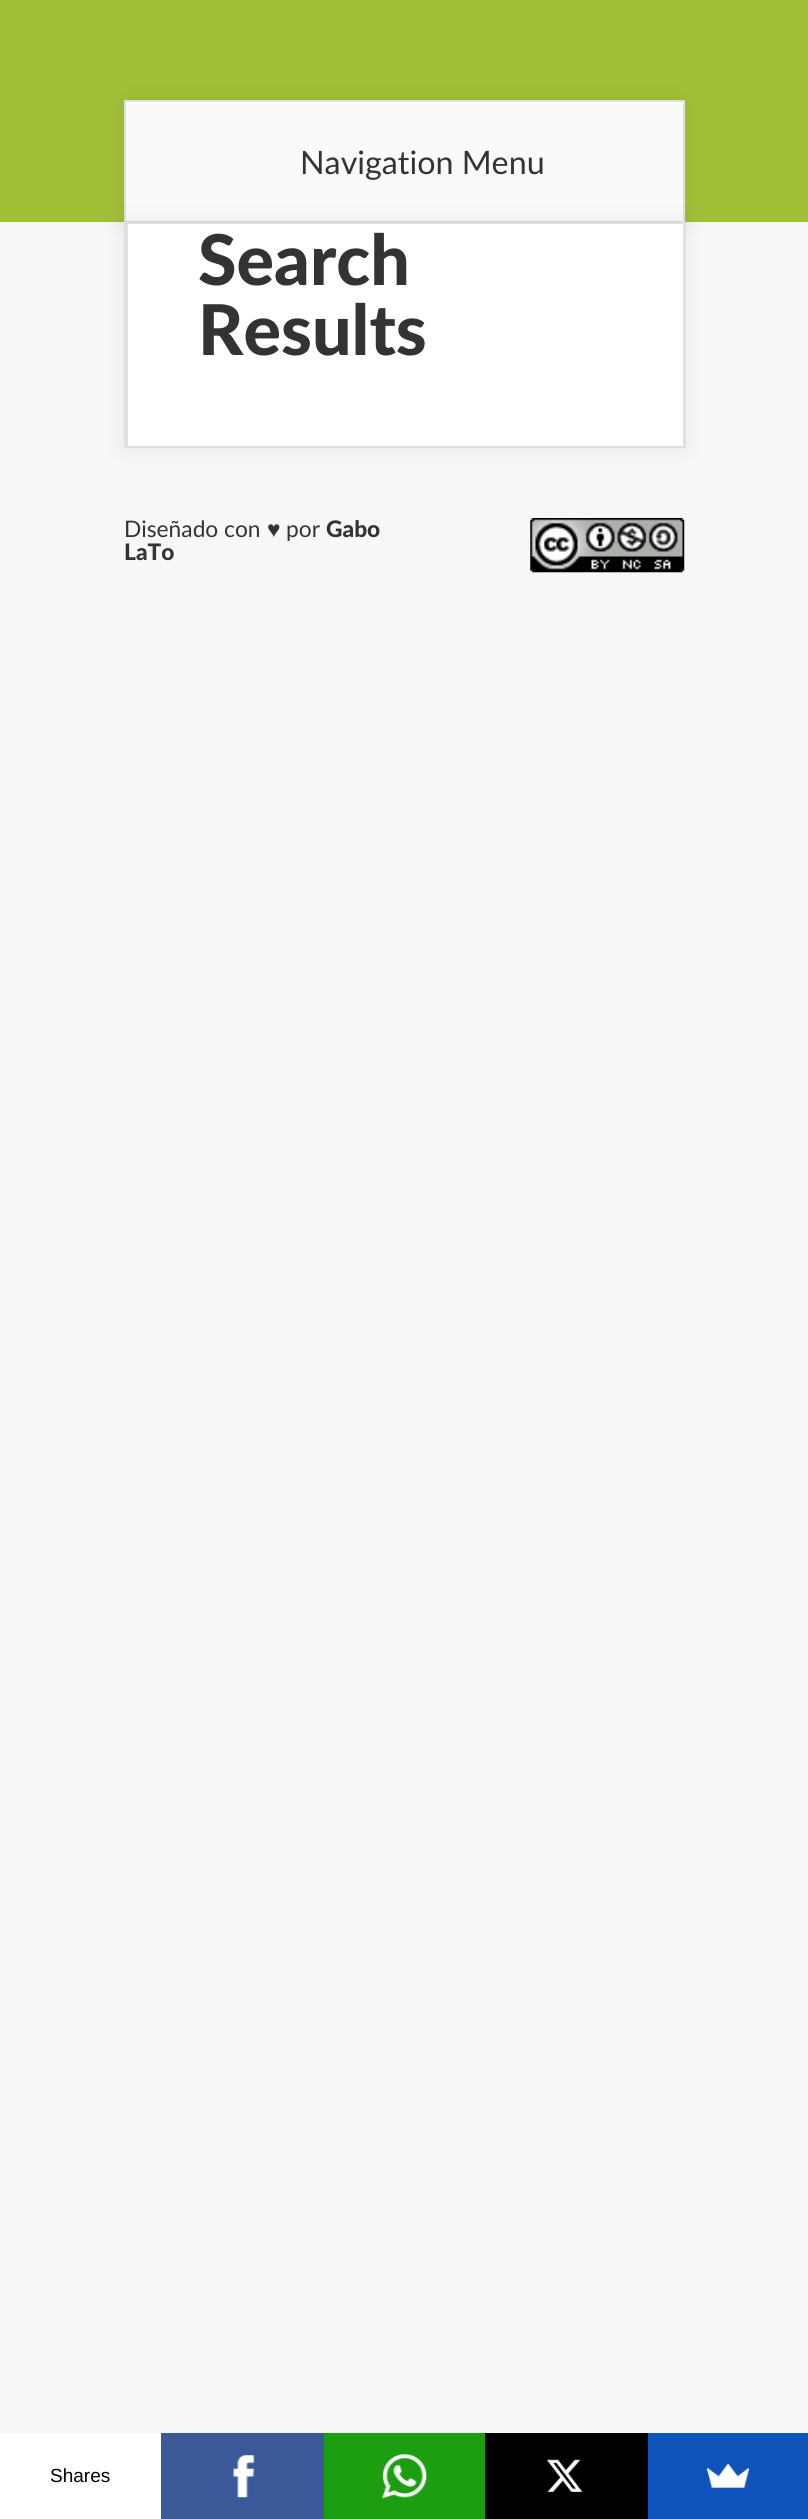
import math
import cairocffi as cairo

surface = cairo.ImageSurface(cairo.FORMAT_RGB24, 808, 2519)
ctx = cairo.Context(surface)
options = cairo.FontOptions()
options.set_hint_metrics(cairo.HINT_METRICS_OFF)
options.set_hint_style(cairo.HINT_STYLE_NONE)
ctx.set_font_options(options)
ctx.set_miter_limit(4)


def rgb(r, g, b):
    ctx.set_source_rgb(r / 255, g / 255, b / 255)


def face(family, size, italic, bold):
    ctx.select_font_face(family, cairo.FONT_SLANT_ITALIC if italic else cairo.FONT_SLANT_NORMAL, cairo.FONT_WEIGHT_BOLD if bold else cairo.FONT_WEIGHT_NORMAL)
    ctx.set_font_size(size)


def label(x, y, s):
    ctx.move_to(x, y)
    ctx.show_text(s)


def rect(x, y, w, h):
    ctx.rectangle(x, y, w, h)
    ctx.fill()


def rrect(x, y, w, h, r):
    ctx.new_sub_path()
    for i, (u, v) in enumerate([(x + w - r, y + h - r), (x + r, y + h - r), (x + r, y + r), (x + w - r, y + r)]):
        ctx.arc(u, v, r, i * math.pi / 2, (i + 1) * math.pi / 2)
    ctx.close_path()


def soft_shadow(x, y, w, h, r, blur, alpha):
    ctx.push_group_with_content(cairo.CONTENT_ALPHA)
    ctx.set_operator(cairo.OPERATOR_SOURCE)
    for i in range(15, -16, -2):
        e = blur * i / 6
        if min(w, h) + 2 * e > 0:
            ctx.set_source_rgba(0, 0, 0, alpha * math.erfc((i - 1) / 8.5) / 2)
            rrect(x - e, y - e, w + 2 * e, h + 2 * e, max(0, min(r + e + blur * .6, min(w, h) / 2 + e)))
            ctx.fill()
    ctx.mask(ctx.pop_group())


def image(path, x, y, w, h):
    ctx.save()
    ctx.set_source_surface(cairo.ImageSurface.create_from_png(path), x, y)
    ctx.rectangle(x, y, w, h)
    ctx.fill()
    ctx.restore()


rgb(247, 247, 247)
ctx.paint()
rgb(162, 192, 55)
rect(0, 0, 808, 222)
rgb(0, 0, 0)
soft_shadow(124, 100, 560, 122, 0, 13, 0.07)
rgb(250, 250, 250)
rect(126, 104, 557, 117)
rgb(218, 218, 218)
rect(126, 221, 557, 1)
rgb(255, 255, 255)
rect(126, 102, 557, 2)
rgb(224, 224, 224)
rect(124, 100, 560, 2)
rect(683, 100, 2, 122)
rect(124, 100, 2, 122)
face('Lato', 32.25, 0, 0)
rgb(51, 51, 51)
label(300, 174, 'Navigation Menu')
rgb(0, 0, 0)
soft_shadow(124, 222, 560, 226, 0, 13, 0.07)
rgb(255, 255, 255)
rect(128, 224, 555, 222)
rgb(224, 224, 224)
rect(683, 222, 1, 226)
rect(124, 222, 2, 226)
ctx.rectangle(127, 223, 558, 224)
ctx.stroke()
face('Lato Black', 70, 0, 0)
rgb(51, 51, 51)
label(198, 285, 'Search')
label(198, 355, 'Results')
face('Lato', 22.75, 0, 0)
label(124, 537, 'Diseñado con')
face('Liberation Sans', 22.75, 0, 0)
label(267, 537, '♥')
face('Lato', 22.75, 0, 0)
label(286, 537, 'por')
face('Lato Black', 22.75, 0, 0)
label(326, 537, 'Gabo')
label(124, 560, 'LaTo')
image('image0.png', 530, 518, 155, 55)
rgb(255, 255, 255)
rect(0, 2433, 161, 86)
face('Liberation Sans', 19, 0, 0)
rgb(0, 0, 0)
label(50, 2482, 'Shares')
rgb(59, 89, 152)
rect(161, 2433, 163, 86)
image('image1.png', 233, 2455, 22, 43)
rgb(29, 158, 17)
rect(324, 2433, 161, 86)
image('image2.png', 382, 2454, 45, 45)
rgb(0, 0, 0)
rect(485, 2433, 163, 86)
image('image3.png', 546, 2459, 36, 33)
rgb(15, 82, 186)
rect(648, 2433, 160, 86)
image('image4.png', 707, 2464, 42, 24)
surface.write_to_png('render.png')
